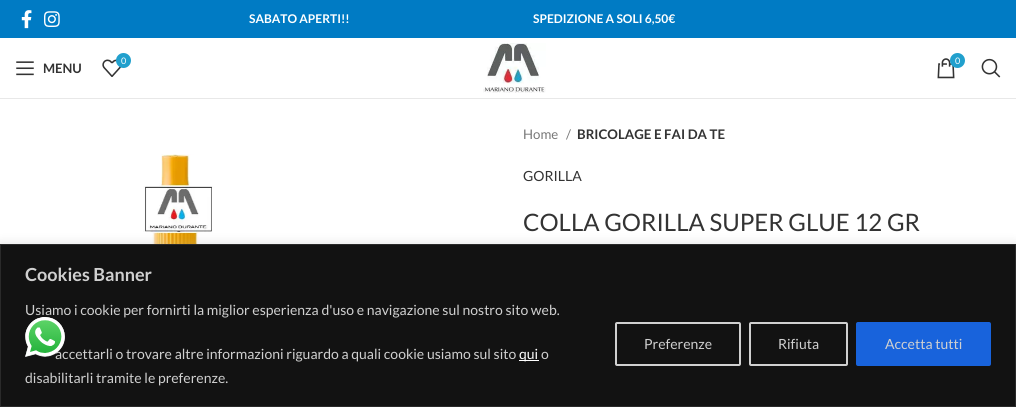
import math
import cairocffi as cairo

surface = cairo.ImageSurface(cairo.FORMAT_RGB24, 1016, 407)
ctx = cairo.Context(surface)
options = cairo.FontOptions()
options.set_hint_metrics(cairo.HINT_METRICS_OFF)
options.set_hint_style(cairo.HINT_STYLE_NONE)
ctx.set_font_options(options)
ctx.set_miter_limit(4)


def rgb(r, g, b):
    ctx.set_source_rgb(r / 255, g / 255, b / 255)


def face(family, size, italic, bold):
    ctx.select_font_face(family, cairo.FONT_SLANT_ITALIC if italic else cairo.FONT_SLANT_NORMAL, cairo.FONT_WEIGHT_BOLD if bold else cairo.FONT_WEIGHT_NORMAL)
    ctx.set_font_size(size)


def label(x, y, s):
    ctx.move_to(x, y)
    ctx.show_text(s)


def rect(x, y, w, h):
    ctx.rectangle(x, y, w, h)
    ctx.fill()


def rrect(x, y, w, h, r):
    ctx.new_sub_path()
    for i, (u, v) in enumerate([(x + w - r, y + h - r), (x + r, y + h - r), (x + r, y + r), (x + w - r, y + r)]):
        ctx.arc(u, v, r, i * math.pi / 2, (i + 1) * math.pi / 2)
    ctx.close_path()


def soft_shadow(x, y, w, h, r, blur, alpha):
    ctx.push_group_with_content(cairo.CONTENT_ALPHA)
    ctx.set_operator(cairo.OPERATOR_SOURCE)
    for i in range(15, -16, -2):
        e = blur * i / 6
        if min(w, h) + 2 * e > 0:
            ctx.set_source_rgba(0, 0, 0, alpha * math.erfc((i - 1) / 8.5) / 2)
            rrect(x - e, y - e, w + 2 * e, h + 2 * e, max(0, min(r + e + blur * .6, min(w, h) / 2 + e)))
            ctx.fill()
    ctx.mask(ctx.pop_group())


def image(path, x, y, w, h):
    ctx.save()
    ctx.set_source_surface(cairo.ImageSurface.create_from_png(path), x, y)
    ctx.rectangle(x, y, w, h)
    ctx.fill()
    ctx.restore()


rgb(255, 255, 255)
ctx.paint()
rgb(0, 123, 196)
rect(0, 0, 1016, 38)
image('image0.png', 21, 10, 11, 19)
image('image1.png', 44, 11, 16, 16)
face('Lato', 12, 0, 1)
rgb(255, 255, 255)
label(249, 23, 'SABATO APERTI!!')
label(533, 23, 'SPEDIZIONE A SOLI 6,50€')
rgb(232, 232, 232)
rect(0, 98, 1016, 1)
image('image2.png', 102, 59, 20, 18)
rgb(33, 160, 205)
ctx.arc(123.5, 60.5, 7.5, 0, 2 * math.pi)
ctx.fill()
face('Lato', 9, 0, 0)
rgb(255, 255, 255)
label(121, 64, '0')
image('image3.png', 16, 61, 18, 15)
face('Lato', 13, 0, 1)
rgb(51, 51, 51)
label(43, 73, 'MENU')
image('image4.png', 483, 43, 63, 50)
image('image5.png', 937, 58, 18, 21)
rgb(33, 160, 205)
ctx.arc(957.5, 60.5, 7.5, 0, 2 * math.pi)
ctx.fill()
face('Lato', 9, 0, 0)
rgb(255, 255, 255)
label(955, 64, '0')
image('image6.png', 981, 58, 20, 20)
image('image7.png', 137, 154, 78, 90)
face('Lato', 13.25, 0, 0)
rgb(119, 119, 119)
label(523, 139, 'Home')
label(566, 139, '/')
face('Lato', 13.25, 0, 1)
rgb(51, 51, 51)
label(577, 139, 'BRICOLAGE E FAI DA TE')
face('Lato', 14, 0, 0)
label(523, 181, 'GORILLA')
face('Lato', 24, 0, 0)
label(523, 231, 'COLLA GORILLA SUPER GLUE 12 GR')
rgb(172, 171, 171)
soft_shadow(0, 243, 1016, 163, 0, 5, 0.3)
rgb(18, 18, 18)
ctx.rectangle(0.5, 244.5, 1015, 162)
ctx.fill_preserve()
rgb(42, 42, 42)
ctx.set_line_width(1)
ctx.stroke()
face('Lato', 18, 0, 1)
rgb(208, 208, 208)
label(25, 281, 'Cookies Banner')
face('Lato', 14, 0, 0)
label(25, 315, 'Usiamo i cookie per fornirti la miglior esperienza d\'uso e navigazione sul nostro sito web.')
label(55, 359, 'accettarli o trovare altre informazioni riguardo a quali cookie usiamo sul sito')
rgb(255, 255, 255)
rect(519, 360, 20, 1)
label(519, 359, 'qui')
rgb(208, 208, 208)
label(541, 359, 'o')
label(25, 383, 'disabilitarli tramite le preferenze.')
rrect(616, 323, 124, 42, 1)
ctx.set_line_width(2)
ctx.stroke()
label(644, 349, 'Preferenze')
rrect(750, 323, 97, 42, 1)
ctx.stroke()
label(778, 349, 'Rifiuta')
rgb(24, 99, 220)
rrect(857, 323, 133, 42, 1)
ctx.fill_preserve()
ctx.stroke()
rgb(208, 208, 208)
label(885, 349, 'Accetta tutti')
image('image8.png', 25, 317, 40, 40)
surface.write_to_png('render.png')
